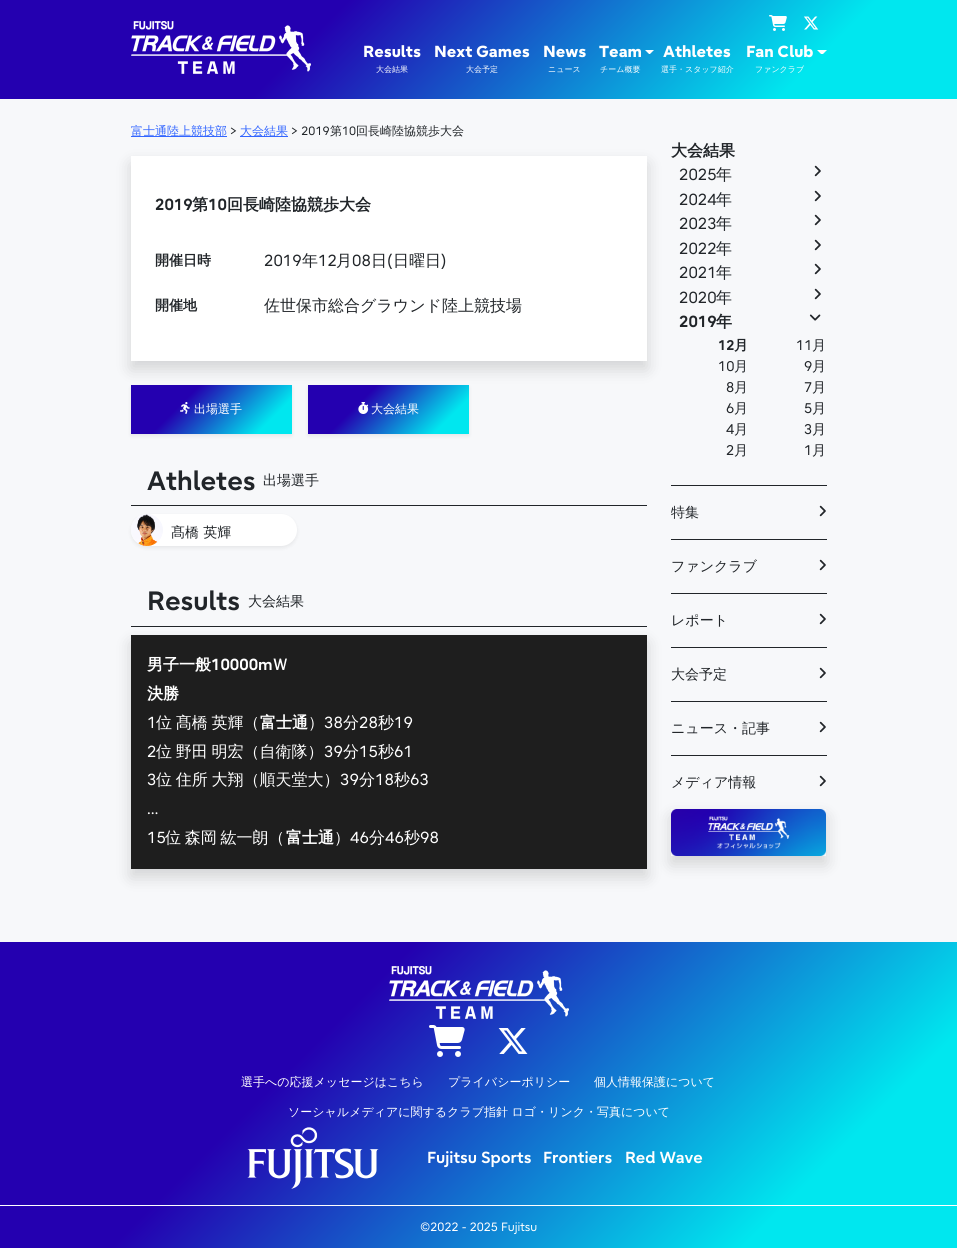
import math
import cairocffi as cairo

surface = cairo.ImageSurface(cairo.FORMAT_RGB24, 957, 1248)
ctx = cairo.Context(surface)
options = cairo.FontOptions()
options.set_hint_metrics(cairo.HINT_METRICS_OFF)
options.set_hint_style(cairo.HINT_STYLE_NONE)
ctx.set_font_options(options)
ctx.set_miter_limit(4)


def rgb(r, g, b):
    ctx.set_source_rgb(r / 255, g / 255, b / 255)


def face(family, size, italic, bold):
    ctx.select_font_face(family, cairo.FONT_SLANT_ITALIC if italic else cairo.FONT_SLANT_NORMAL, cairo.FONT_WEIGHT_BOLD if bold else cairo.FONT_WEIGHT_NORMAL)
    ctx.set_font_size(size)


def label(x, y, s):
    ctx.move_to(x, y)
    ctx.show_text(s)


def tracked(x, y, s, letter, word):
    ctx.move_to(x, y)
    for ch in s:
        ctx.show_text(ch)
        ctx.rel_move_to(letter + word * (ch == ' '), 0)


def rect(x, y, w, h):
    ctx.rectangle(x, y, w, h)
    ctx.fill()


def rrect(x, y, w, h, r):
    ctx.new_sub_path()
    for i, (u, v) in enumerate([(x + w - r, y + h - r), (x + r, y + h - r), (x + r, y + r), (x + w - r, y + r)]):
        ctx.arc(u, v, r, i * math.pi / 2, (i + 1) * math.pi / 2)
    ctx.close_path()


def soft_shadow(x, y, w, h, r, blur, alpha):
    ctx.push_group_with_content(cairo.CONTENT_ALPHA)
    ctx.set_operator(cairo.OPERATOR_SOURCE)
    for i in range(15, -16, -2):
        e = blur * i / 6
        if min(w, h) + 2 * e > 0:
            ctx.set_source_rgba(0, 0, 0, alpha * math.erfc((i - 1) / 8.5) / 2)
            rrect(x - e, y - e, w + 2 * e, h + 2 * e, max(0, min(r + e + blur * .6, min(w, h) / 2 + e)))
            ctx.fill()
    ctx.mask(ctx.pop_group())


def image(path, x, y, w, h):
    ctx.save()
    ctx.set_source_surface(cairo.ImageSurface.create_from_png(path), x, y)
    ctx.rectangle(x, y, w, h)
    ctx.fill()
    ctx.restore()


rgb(247, 248, 250)
ctx.paint()
gradient = cairo.LinearGradient(215, -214, 743, 314)
gradient.add_color_stop_rgba(0.33, 0.141, 0, 0.69, 1)
gradient.add_color_stop_rgba(0.83, 0, 0.906, 0.937, 1)
ctx.set_source(gradient)
rect(0, 0, 957, 99)
image('image0.png', 131, 21, 180, 53)
image('image1.png', 769, 15, 18, 16)
image('image2.png', 804, 16, 15, 14)
face('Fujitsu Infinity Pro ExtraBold', 16, 0, 0)
rgb(255, 255, 255)
label(363, 57, 'Results')
face('WenQuanYi Zen Hei Medium', 8, 0, 0)
label(376, 72, '大会結果')
face('Fujitsu Infinity Pro ExtraBold', 16, 0, 0)
label(434, 57, 'Next Games')
face('WenQuanYi Zen Hei Medium', 8, 0, 0)
label(466, 72, '大会予定')
face('Fujitsu Infinity Pro ExtraBold', 16, 0, 0)
label(543, 57, 'News')
face('WenQuanYi Zen Hei Medium', 8, 0, 0)
label(548, 72, 'ニュース')
face('Fujitsu Infinity Pro ExtraBold', 16, 0, 0)
label(599, 57, 'Team')
ctx.new_path()
ctx.move_to(645, 50)
ctx.line_to(654, 50)
ctx.line_to(650, 54)
ctx.line_to(649, 54)
ctx.close_path()
ctx.fill()
face('WenQuanYi Zen Hei Medium', 8, 0, 0)
label(600, 72, 'チーム概要')
face('Fujitsu Infinity Pro ExtraBold', 16, 0, 0)
label(663, 57, 'Athletes')
face('WenQuanYi Zen Hei Medium', 8, 0, 0)
label(661, 72, '選手・スタッフ紹介')
face('Fujitsu Infinity Pro ExtraBold', 16, 0, 0)
label(746, 57, 'Fan Club')
ctx.new_path()
ctx.move_to(817, 50)
ctx.line_to(827, 50)
ctx.line_to(823, 54)
ctx.line_to(821, 54)
ctx.close_path()
ctx.fill()
face('WenQuanYi Zen Hei Medium', 8, 0, 0)
label(755, 72, 'ファンクラブ')
rgb(51, 102, 255)
rect(131, 136, 96, 1)
face('WenQuanYi Zen Hei Medium', 12, 0, 0)
label(131, 135, '富士通陸上競技部')
face('Fujitsu Infinity Pro', 12, 0, 0)
rgb(33, 37, 41)
label(230, 135, '>')
rgb(51, 102, 255)
rect(240, 136, 48, 1)
face('WenQuanYi Zen Hei Medium', 12, 0, 0)
label(240, 135, '大会結果')
face('Fujitsu Infinity Pro', 12, 0, 0)
rgb(33, 37, 41)
label(291, 135, '> 2019')
face('WenQuanYi Zen Hei Medium', 12, 0, 0)
label(330, 135, '第')
face('Fujitsu Infinity Pro', 12, 0, 0)
label(342, 135, '10')
face('WenQuanYi Zen Hei Medium', 12, 0, 0)
label(356, 135, '回長崎陸協競歩大会')
rgb(0, 0, 0)
soft_shadow(131, 164, 516, 205, 0, 8, 0.15)
rgb(255, 255, 255)
rect(131, 156, 516, 205)
face('Fujitsu Infinity Pro', 16, 0, 1)
rgb(33, 37, 41)
label(155, 210, '2019')
face('WenQuanYi Zen Hei', 16, 0, 1)
label(192, 210, '第')
face('Fujitsu Infinity Pro', 16, 0, 1)
label(208, 210, '10')
face('WenQuanYi Zen Hei', 16, 0, 1)
label(227, 210, '回長崎陸協競歩大会')
face('WenQuanYi Zen Hei', 14, 0, 1)
label(155, 265, '開催日時')
face('Fujitsu Infinity Pro', 16, 0, 0)
label(264, 266, '2019')
face('WenQuanYi Zen Hei Medium', 16, 0, 0)
label(302, 266, '年')
face('Fujitsu Infinity Pro', 16, 0, 0)
label(318, 266, '12')
face('WenQuanYi Zen Hei Medium', 16, 0, 0)
label(336, 266, '月')
face('Fujitsu Infinity Pro', 16, 0, 0)
label(352, 266, '08')
face('WenQuanYi Zen Hei Medium', 16, 0, 0)
label(371, 266, '日')
face('Fujitsu Infinity Pro', 16, 0, 0)
label(387, 266, '(')
face('WenQuanYi Zen Hei Medium', 16, 0, 0)
label(393, 266, '日曜日')
face('Fujitsu Infinity Pro', 16, 0, 0)
label(441, 266, ')')
face('WenQuanYi Zen Hei', 14, 0, 1)
label(155, 310, '開催地')
face('WenQuanYi Zen Hei Medium', 16, 0, 0)
label(264, 311, '佐世保市総合グラウンド陸上競技場')
rgb(0, 0, 0)
soft_shadow(131, 387, 161, 49, 0, 2, 0.07)
gradient = cairo.LinearGradient(159, 357, 264, 462)
gradient.add_color_stop_rgba(0.33, 0.141, 0, 0.69, 1)
gradient.add_color_stop_rgba(0.83, 0, 0.906, 0.937, 1)
ctx.set_source(gradient)
rect(131, 385, 161, 49)
image('image3.png', 180, 402, 10, 12)
face('WenQuanYi Zen Hei Medium', 12, 0, 0)
rgb(255, 255, 255)
label(194, 413, '出場選手')
rgb(0, 0, 0)
soft_shadow(308, 387, 161, 49, 0, 2, 0.07)
gradient = cairo.LinearGradient(336, 357, 441, 462)
gradient.add_color_stop_rgba(0.33, 0.141, 0, 0.69, 1)
gradient.add_color_stop_rgba(0.83, 0, 0.906, 0.937, 1)
ctx.set_source(gradient)
rect(308, 385, 161, 49)
image('image4.png', 358, 402, 11, 12)
rgb(255, 255, 255)
label(371, 413, '大会結果')
face('Fujitsu Infinity Pro', 26.5, 0, 1)
rgb(33, 37, 41)
label(147, 490, 'Athletes')
face('WenQuanYi Zen Hei Medium', 14, 0, 0)
label(263, 485, '出場選手')
rect(131, 505, 516, 1)
rgb(0, 0, 0)
soft_shadow(131, 516, 166, 32, 16, 2, 0.07)
rgb(255, 255, 255)
rrect(131, 514, 166, 32, 16)
ctx.fill()
image('image5.png', 131, 514, 32, 32)
rgb(33, 37, 41)
label(171, 537, '髙橋 英輝')
face('Fujitsu Infinity Pro', 26.5, 0, 1)
label(147, 610, 'Results')
face('WenQuanYi Zen Hei Medium', 14, 0, 0)
label(248, 606, '大会結果')
rect(131, 626, 516, 1)
rect(671, 647, 156, 1)
rect(671, 701, 156, 1)
rect(671, 755, 156, 1)
ctx.save()
ctx.set_fill_rule(cairo.FILL_RULE_EVEN_ODD)
ctx.new_path()
ctx.move_to(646, 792)
ctx.line_to(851, 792)
ctx.line_to(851, 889)
ctx.line_to(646, 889)
ctx.close_path()
ctx.move_to(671, 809)
ctx.line_to(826, 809)
ctx.line_to(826, 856)
ctx.line_to(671, 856)
ctx.close_path()
ctx.clip()
rgb(0, 0, 0)
soft_shadow(671, 817, 155, 47, 0, 8, 0.15)
ctx.restore()
image('image8.png', 671, 809, 155, 47)
rgb(0, 0, 0)
soft_shadow(131, 643, 516, 234, 0, 8, 0.15)
rgb(30, 30, 30)
rect(131, 635, 516, 234)
face('WenQuanYi Zen Hei', 16, 0, 1)
rgb(255, 255, 255)
label(147, 670, '男子一般')
face('Fujitsu Infinity Pro', 16, 0, 1)
label(211, 670, '10000m')
face('WenQuanYi Zen Hei', 16, 0, 1)
label(272, 670, 'Ｗ')
label(147, 699, '決勝')
face('Fujitsu Infinity Pro', 16, 0, 0)
label(147, 728, '1')
face('WenQuanYi Zen Hei Medium', 16, 0, 0)
tracked(156, 728, '位 髙橋 英輝（', 0, -1)
face('WenQuanYi Zen Hei', 16, 0, 1)
label(260, 728, '富士通')
face('WenQuanYi Zen Hei Medium', 16, 0, 0)
label(308, 728, '）')
face('Fujitsu Infinity Pro', 16, 0, 0)
label(324, 728, '38')
face('WenQuanYi Zen Hei Medium', 16, 0, 0)
label(343, 728, '分')
face('Fujitsu Infinity Pro', 16, 0, 0)
label(359, 728, '28')
face('WenQuanYi Zen Hei Medium', 16, 0, 0)
label(378, 728, '秒')
face('Fujitsu Infinity Pro', 16, 0, 0)
label(394, 728, '19')
label(147, 757, '2')
face('WenQuanYi Zen Hei Medium', 16, 0, 0)
tracked(156, 757, '位 野田 明宏（自衛隊）', 0, -1)
face('Fujitsu Infinity Pro', 16, 0, 0)
label(324, 757, '39')
face('WenQuanYi Zen Hei Medium', 16, 0, 0)
label(343, 757, '分')
face('Fujitsu Infinity Pro', 16, 0, 0)
label(359, 757, '15')
face('WenQuanYi Zen Hei Medium', 16, 0, 0)
label(378, 757, '秒')
face('Fujitsu Infinity Pro', 16, 0, 0)
label(394, 757, '61')
label(147, 785, '3')
face('WenQuanYi Zen Hei Medium', 16, 0, 0)
tracked(156, 785, '位 住所 大翔（順天堂大）', 0, -1)
face('Fujitsu Infinity Pro', 16, 0, 0)
label(340, 785, '39')
face('WenQuanYi Zen Hei Medium', 16, 0, 0)
label(359, 785, '分')
face('Fujitsu Infinity Pro', 16, 0, 0)
label(375, 785, '18')
face('WenQuanYi Zen Hei Medium', 16, 0, 0)
label(394, 785, '秒')
face('Fujitsu Infinity Pro', 16, 0, 0)
label(410, 785, '63')
label(147, 814, '…')
label(147, 843, '15')
face('WenQuanYi Zen Hei Medium', 16, 0, 0)
tracked(165, 843, '位 森岡 紘一朗（', 0, -1)
face('WenQuanYi Zen Hei', 16, 0, 1)
label(286, 843, '富士通')
face('WenQuanYi Zen Hei Medium', 16, 0, 0)
label(334, 843, '）')
face('Fujitsu Infinity Pro', 16, 0, 0)
label(350, 843, '46')
face('WenQuanYi Zen Hei Medium', 16, 0, 0)
label(369, 843, '分')
face('Fujitsu Infinity Pro', 16, 0, 0)
label(385, 843, '46')
face('WenQuanYi Zen Hei Medium', 16, 0, 0)
label(404, 843, '秒')
face('Fujitsu Infinity Pro', 16, 0, 0)
label(420, 843, '98')
face('WenQuanYi Zen Hei', 16, 0, 1)
rgb(33, 37, 41)
label(671, 156, '大会結果')
face('Fujitsu Infinity Pro', 16, 0, 0)
label(679, 180, '2025')
face('WenQuanYi Zen Hei Medium', 16, 0, 0)
label(716, 180, '年')
image('image6.png', 814, 165, 7, 12)
face('Fujitsu Infinity Pro', 16, 0, 0)
label(679, 205, '2024')
face('WenQuanYi Zen Hei Medium', 16, 0, 0)
label(716, 205, '年')
image('image6.png', 814, 190, 7, 12)
face('Fujitsu Infinity Pro', 16, 0, 0)
label(679, 229, '2023')
face('WenQuanYi Zen Hei Medium', 16, 0, 0)
label(716, 229, '年')
image('image6.png', 814, 214, 7, 12)
face('Fujitsu Infinity Pro', 16, 0, 0)
label(679, 254, '2022')
face('WenQuanYi Zen Hei Medium', 16, 0, 0)
label(716, 254, '年')
image('image6.png', 814, 239, 7, 12)
face('Fujitsu Infinity Pro', 16, 0, 0)
label(679, 278, '2021')
face('WenQuanYi Zen Hei Medium', 16, 0, 0)
label(716, 278, '年')
image('image6.png', 814, 263, 7, 12)
face('Fujitsu Infinity Pro', 16, 0, 0)
label(679, 303, '2020')
face('WenQuanYi Zen Hei Medium', 16, 0, 0)
label(716, 303, '年')
image('image6.png', 814, 288, 7, 12)
face('Fujitsu Infinity Pro', 16, 0, 1)
label(679, 327, '2019')
face('WenQuanYi Zen Hei', 16, 0, 1)
label(716, 327, '年')
image('image7.png', 809, 314, 12, 7)
face('Fujitsu Infinity Pro', 14, 0, 1)
label(718, 350, '12')
face('WenQuanYi Zen Hei', 14, 0, 1)
label(734, 350, '月')
face('Fujitsu Infinity Pro', 14, 0, 0)
label(796, 350, '11')
face('WenQuanYi Zen Hei Medium', 14, 0, 0)
label(812, 350, '月')
face('Fujitsu Infinity Pro', 14, 0, 0)
label(718, 371, '10')
face('WenQuanYi Zen Hei Medium', 14, 0, 0)
label(734, 371, '月')
face('Fujitsu Infinity Pro', 14, 0, 0)
label(804, 371, '9')
face('WenQuanYi Zen Hei Medium', 14, 0, 0)
label(812, 371, '月')
face('Fujitsu Infinity Pro', 14, 0, 0)
label(726, 392, '8')
face('WenQuanYi Zen Hei Medium', 14, 0, 0)
label(734, 392, '月')
face('Fujitsu Infinity Pro', 14, 0, 0)
label(804, 392, '7')
face('WenQuanYi Zen Hei Medium', 14, 0, 0)
label(812, 392, '月')
face('Fujitsu Infinity Pro', 14, 0, 0)
label(726, 413, '6')
face('WenQuanYi Zen Hei Medium', 14, 0, 0)
label(734, 413, '月')
face('Fujitsu Infinity Pro', 14, 0, 0)
label(804, 413, '5')
face('WenQuanYi Zen Hei Medium', 14, 0, 0)
label(812, 413, '月')
face('Fujitsu Infinity Pro', 14, 0, 0)
label(726, 434, '4')
face('WenQuanYi Zen Hei Medium', 14, 0, 0)
label(734, 434, '月')
face('Fujitsu Infinity Pro', 14, 0, 0)
label(804, 434, '3')
face('WenQuanYi Zen Hei Medium', 14, 0, 0)
label(812, 434, '月')
face('Fujitsu Infinity Pro', 14, 0, 0)
label(726, 455, '2')
face('WenQuanYi Zen Hei Medium', 14, 0, 0)
label(734, 455, '月')
face('Fujitsu Infinity Pro', 14, 0, 0)
label(804, 455, '1')
face('WenQuanYi Zen Hei Medium', 14, 0, 0)
label(812, 455, '月')
rect(671, 485, 156, 1)
label(671, 517, '特集')
image('image6.png', 819, 505, 7, 12)
rect(671, 539, 156, 1)
label(671, 571, 'ファンクラブ')
image('image6.png', 819, 559, 7, 12)
rect(671, 593, 156, 1)
label(671, 625, 'レポート')
image('image6.png', 819, 613, 7, 12)
label(671, 679, '大会予定')
image('image6.png', 819, 667, 7, 12)
label(671, 733, 'ニュース・記事')
image('image6.png', 819, 721, 7, 12)
label(671, 787, 'メディア情報')
image('image6.png', 819, 775, 7, 12)
gradient = cairo.LinearGradient(163, 779, 794, 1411)
gradient.add_color_stop_rgba(0.33, 0.141, 0, 0.69, 1)
gradient.add_color_stop_rgba(0.83, 0, 0.906, 0.937, 1)
ctx.set_source(gradient)
rect(0, 942, 957, 306)
image('image9.png', 389, 966, 180, 53)
image('image10.png', 429, 1025, 36, 32)
image('image11.png', 498, 1028, 30, 26)
face('WenQuanYi Zen Hei Medium', 12, 0, 0)
rgb(255, 255, 255)
label(241, 1086, '選手への応援メッセージはこちら')
label(448, 1086, 'プライバシーポリシー')
label(594, 1086, '個人情報保護について')
label(288, 1116, 'ソーシャルメディアに関するクラブ指針 ロゴ・リンク・写真について')
image('image12.png', 247, 1127, 132, 62)
face('Fujitsu Infinity Pro', 16, 0, 1)
label(427, 1163, 'Fujitsu Sports')
label(543, 1163, 'Frontiers')
label(625, 1163, 'Red Wave')
rect(0, 1205, 957, 1)
face('Fujitsu Infinity Pro', 12, 0, 0)
label(420, 1231, '©2022 - 2025 Fujitsu')
surface.write_to_png('render.png')
